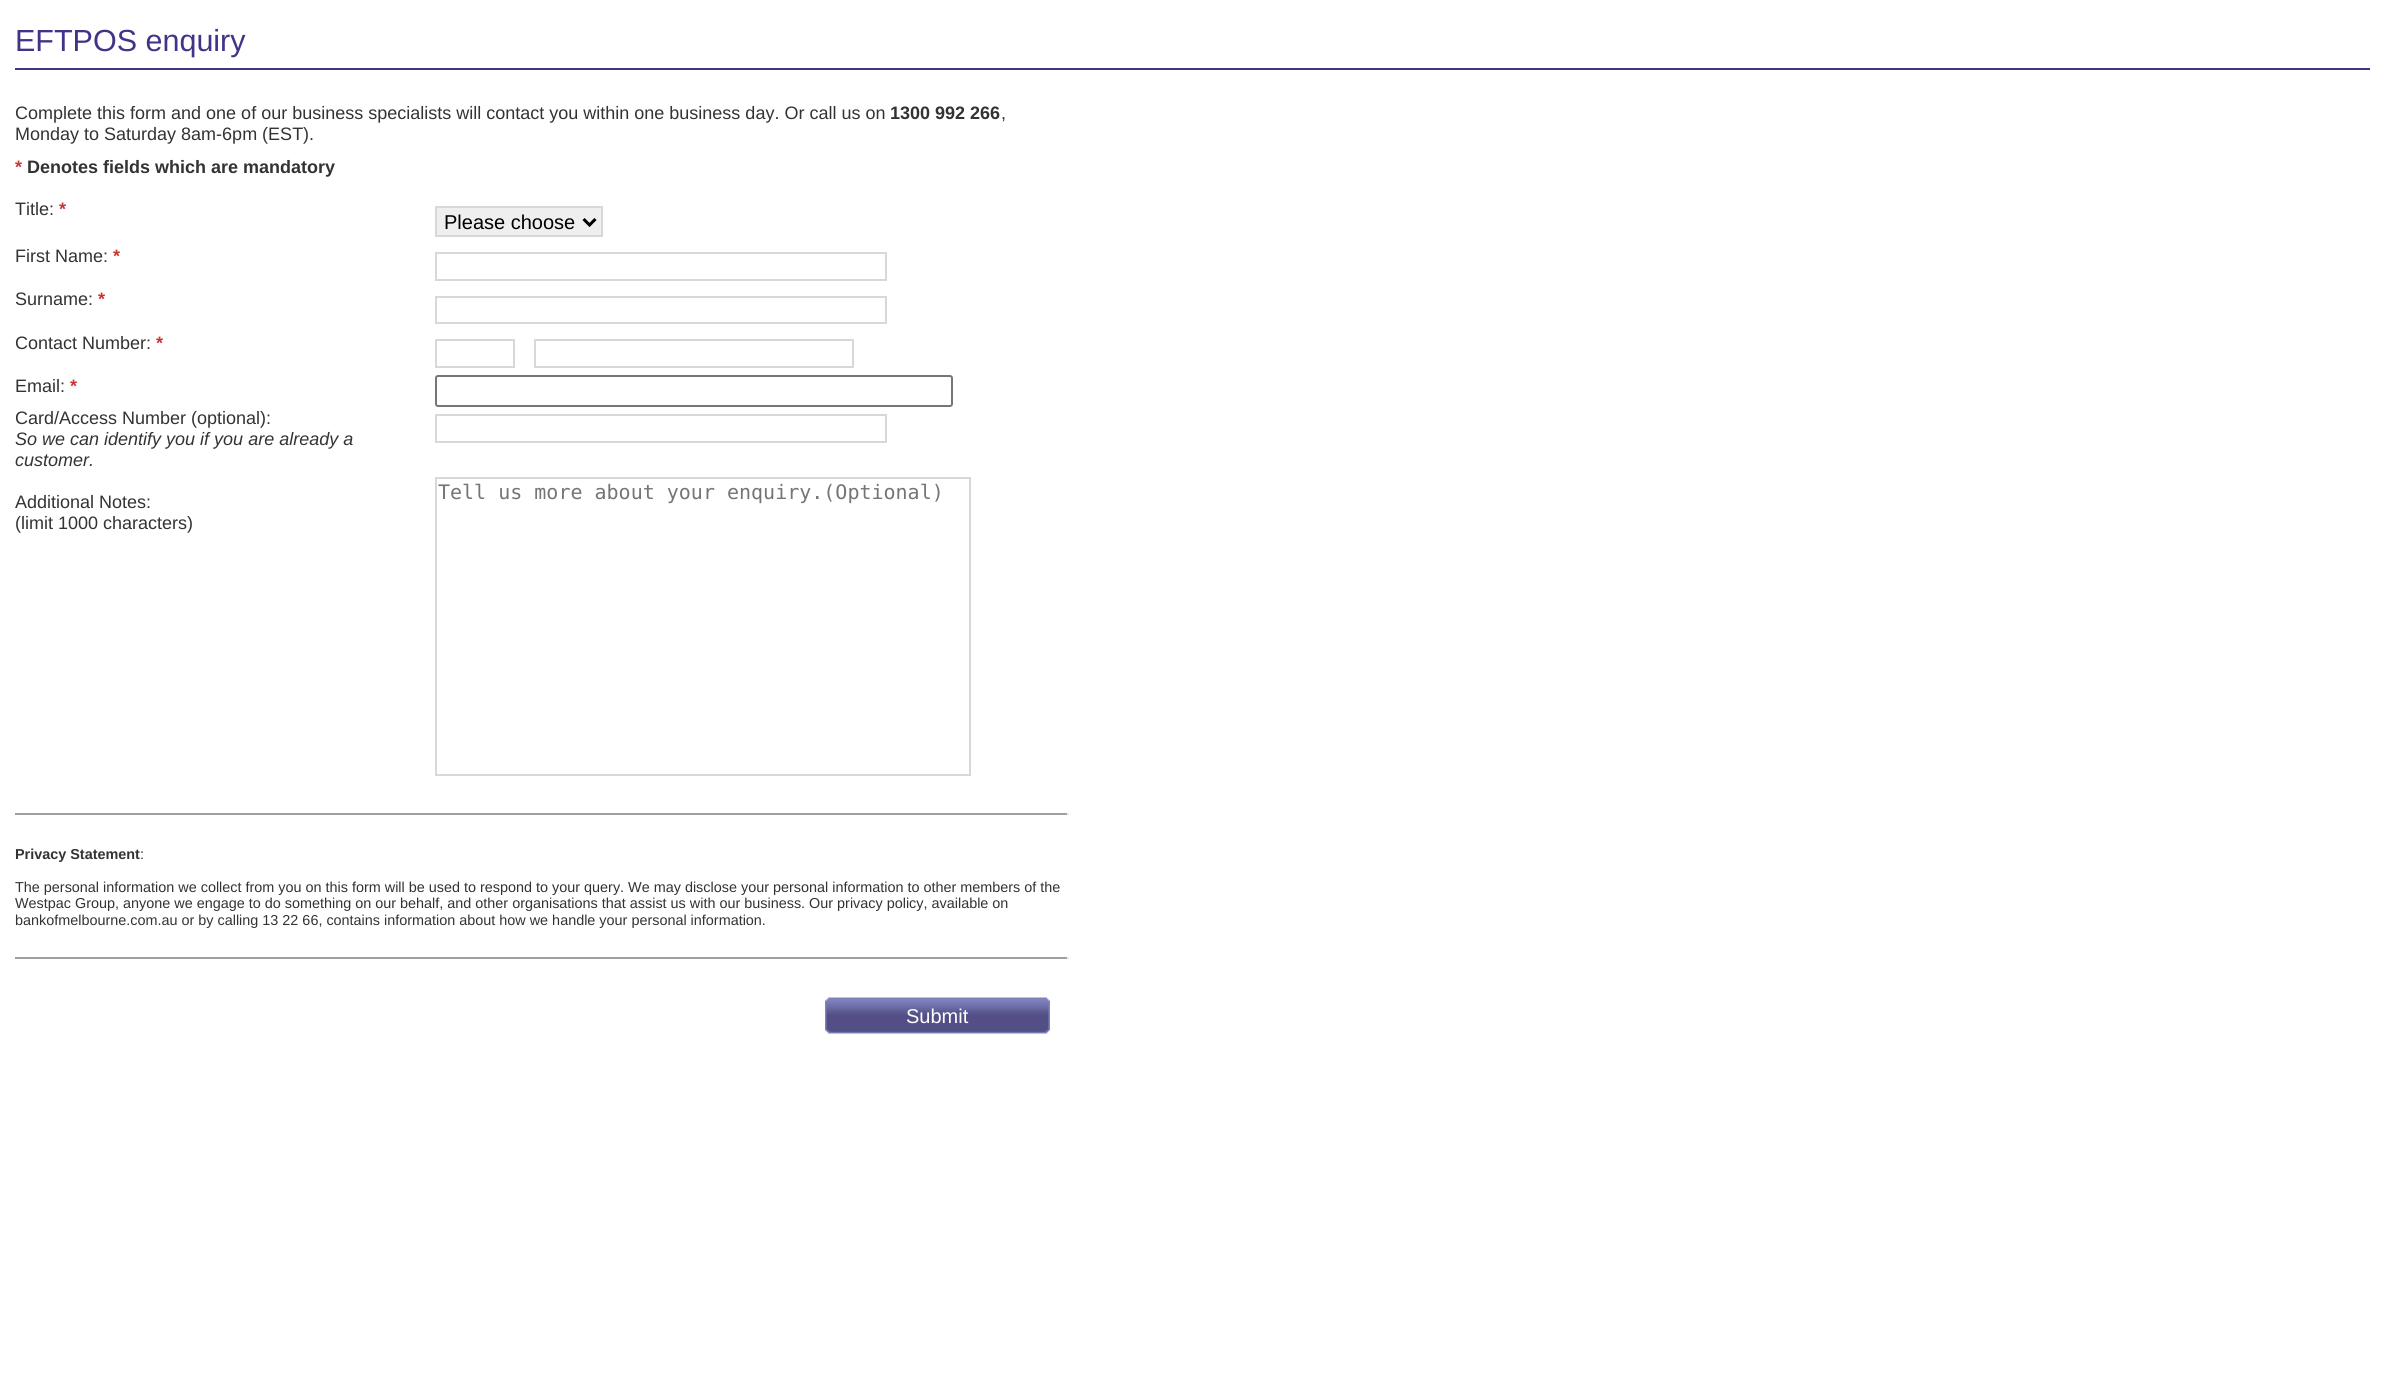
import math
import cairocffi as cairo

surface = cairo.ImageSurface(cairo.FORMAT_RGB24, 2384, 1382)
ctx = cairo.Context(surface)
options = cairo.FontOptions()
options.set_hint_metrics(cairo.HINT_METRICS_OFF)
options.set_hint_style(cairo.HINT_STYLE_NONE)
ctx.set_font_options(options)
ctx.set_miter_limit(4)


def rgb(r, g, b):
    ctx.set_source_rgb(r / 255, g / 255, b / 255)


def face(family, size, italic, bold):
    ctx.select_font_face(family, cairo.FONT_SLANT_ITALIC if italic else cairo.FONT_SLANT_NORMAL, cairo.FONT_WEIGHT_BOLD if bold else cairo.FONT_WEIGHT_NORMAL)
    ctx.set_font_size(size)


def label(x, y, s):
    ctx.move_to(x, y)
    ctx.show_text(s)


def rect(x, y, w, h):
    ctx.rectangle(x, y, w, h)
    ctx.fill()


def rrect(x, y, w, h, r):
    ctx.new_sub_path()
    for i, (u, v) in enumerate([(x + w - r, y + h - r), (x + r, y + h - r), (x + r, y + r), (x + w - r, y + r)]):
        ctx.arc(u, v, r, i * math.pi / 2, (i + 1) * math.pi / 2)
    ctx.close_path()


def image(path, x, y, w, h):
    ctx.save()
    ctx.set_source_surface(cairo.ImageSurface.create_from_png(path), x, y)
    ctx.rectangle(x, y, w, h)
    ctx.fill()
    ctx.restore()


rgb(255, 255, 255)
ctx.paint()
rgb(64, 52, 137)
rect(15, 68, 2355, 2)
face('Liberation Sans', 30.5, 0, 0)
label(15, 51, 'EFTPOS enquiry')
face('Liberation Sans', 18, 0, 0)
rgb(51, 51, 51)
label(15, 119, 'Complete this form and one of our business specialists will contact you within one business day. Or call us on')
face('Liberation Sans', 18, 0, 1)
label(890, 119, '1300 992 266')
face('Liberation Sans', 18, 0, 0)
label(1001, 119, ',')
label(15, 140, 'Monday to Saturday 8am-6pm (EST).')
face('Liberation Sans', 18, 0, 1)
rgb(204, 51, 51)
label(15, 173, '*')
rgb(51, 51, 51)
label(27, 173, 'Denotes fields which are mandatory')
face('Liberation Sans', 18, 0, 0)
label(15, 215, 'Title:')
face('Liberation Sans', 18, 0, 1)
rgb(204, 51, 51)
label(59, 215, '*')
rgb(239, 239, 239)
ctx.rectangle(436, 207, 166, 29)
ctx.fill_preserve()
rgb(216, 216, 216)
ctx.stroke()
ctx.new_path()
ctx.move_to(583.5, 219)
ctx.line_to(589.5, 225)
ctx.line_to(595.5, 219)
rgb(0, 0, 0)
ctx.set_line_width(3)
ctx.stroke()
face('Liberation Sans', 20, 0, 0)
label(444, 229, 'Please choose')
face('Liberation Sans', 18, 0, 0)
rgb(51, 51, 51)
label(15, 262, 'First Name:')
face('Liberation Sans', 18, 0, 1)
rgb(204, 51, 51)
label(113, 262, '*')
ctx.rectangle(436, 253, 450, 27)
rgb(216, 216, 216)
ctx.set_line_width(2)
ctx.stroke()
face('Liberation Sans', 18, 0, 0)
rgb(51, 51, 51)
label(15, 305, 'Surname:')
face('Liberation Sans', 18, 0, 1)
rgb(204, 51, 51)
label(98, 305, '*')
ctx.rectangle(436, 297, 450, 26)
rgb(216, 216, 216)
ctx.stroke()
face('Liberation Sans', 18, 0, 0)
rgb(51, 51, 51)
label(15, 349, 'Contact Number:')
face('Liberation Sans', 18, 0, 1)
rgb(204, 51, 51)
label(156, 349, '*')
ctx.rectangle(436, 340, 78, 27)
rgb(216, 216, 216)
ctx.stroke()
ctx.rectangle(535, 340, 318, 27)
ctx.stroke()
face('Liberation Sans', 18, 0, 0)
rgb(51, 51, 51)
label(15, 392, 'Email:')
face('Liberation Sans', 18, 0, 1)
rgb(204, 51, 51)
label(70, 392, '*')
rrect(436, 376, 516, 30, 2)
rgb(118, 118, 118)
ctx.stroke()
face('Liberation Sans', 18, 0, 0)
rgb(51, 51, 51)
label(15, 424, 'Card/Access Number (optional):')
face('Liberation Sans', 18, 1, 0)
label(15, 445, 'So we can identify you if you are already a')
label(15, 466, 'customer.')
ctx.rectangle(436, 415, 450, 27)
rgb(216, 216, 216)
ctx.stroke()
face('Liberation Sans', 18, 0, 0)
rgb(51, 51, 51)
label(15, 508, 'Additional Notes:')
label(15, 529, '(limit 1000 characters)')
ctx.rectangle(436, 478, 534, 297)
rgb(216, 216, 216)
ctx.stroke()
face('DejaVu Sans Mono', 20, 0, 0)
rgb(117, 117, 117)
label(438, 499, 'Tell us more about your enquiry.(Optional)')
rgb(159, 159, 159)
rect(15, 813, 1053, 2)
rgb(238, 238, 238)
rect(1067, 813, 2, 2)
face('Liberation Sans', 14.4, 0, 1)
rgb(51, 51, 51)
label(15, 859, 'Privacy Statement')
face('Liberation Sans', 14.4, 0, 0)
label(140, 859, ':')
label(15, 892, 'The personal information we collect from you on this form will be used to respond to your query. We may disclose your personal information to other members of the')
label(15, 908, 'Westpac Group, anyone we engage to do something on our behalf, and other organisations that assist us with our business. Our privacy policy, available on')
label(15, 925, 'bankofmelbourne.com.au or by calling 13 22 66, contains information about how we handle your personal information.')
rgb(159, 159, 159)
rect(15, 957, 1053, 2)
rgb(238, 238, 238)
rect(1067, 957, 2, 2)
image('image0.png', 825, 997, 225, 37)
face('Liberation Sans', 20, 0, 0)
rgb(255, 255, 255)
label(906, 1023, 'Submit')
surface.write_to_png('render.png')
